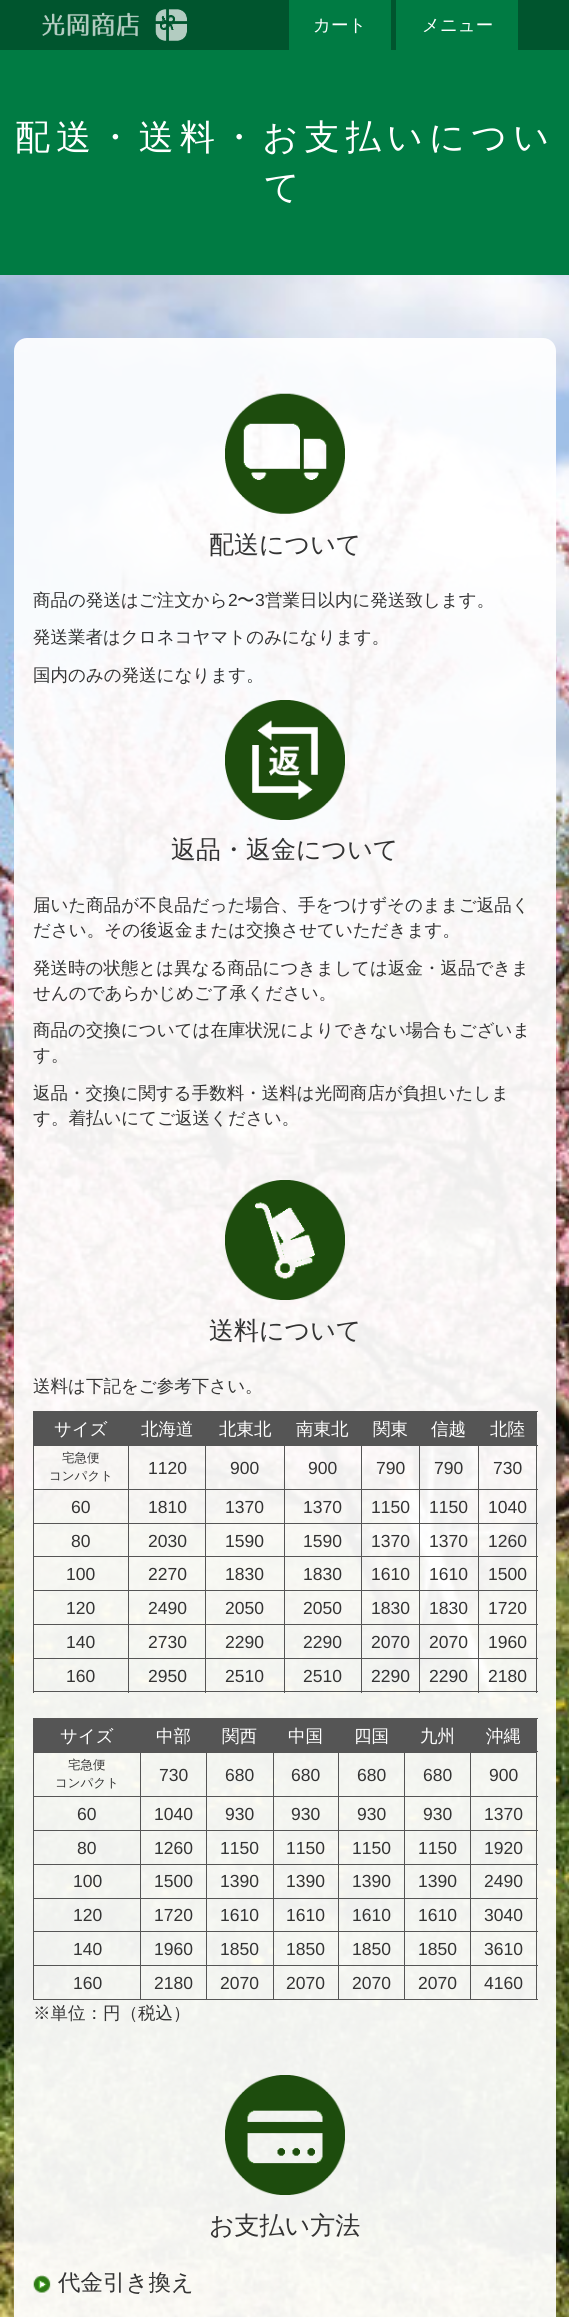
import math
import cairocffi as cairo

surface = cairo.ImageSurface(cairo.FORMAT_RGB24, 569, 2317)
ctx = cairo.Context(surface)
options = cairo.FontOptions()
options.set_hint_metrics(cairo.HINT_METRICS_OFF)
options.set_hint_style(cairo.HINT_STYLE_NONE)
ctx.set_font_options(options)
ctx.set_miter_limit(4)


def rgb(r, g, b):
    ctx.set_source_rgb(r / 255, g / 255, b / 255)


def face(family, size, italic, bold):
    ctx.select_font_face(family, cairo.FONT_SLANT_ITALIC if italic else cairo.FONT_SLANT_NORMAL, cairo.FONT_WEIGHT_BOLD if bold else cairo.FONT_WEIGHT_NORMAL)
    ctx.set_font_size(size)


def label(x, y, s):
    ctx.move_to(x, y)
    ctx.show_text(s)


def tracked(x, y, s, letter, word):
    ctx.move_to(x, y)
    for ch in s:
        ctx.show_text(ch)
        ctx.rel_move_to(letter + word * (ch == ' '), 0)


def rect(x, y, w, h):
    ctx.rectangle(x, y, w, h)
    ctx.fill()


def rrect(x, y, w, h, r):
    ctx.new_sub_path()
    for i, (u, v) in enumerate([(x + w - r, y + h - r), (x + r, y + h - r), (x + r, y + r), (x + w - r, y + r)]):
        ctx.arc(u, v, r, i * math.pi / 2, (i + 1) * math.pi / 2)
    ctx.close_path()


def image(path, x, y, w, h):
    ctx.save()
    ctx.set_source_surface(cairo.ImageSurface.create_from_png(path), x, y)
    ctx.rectangle(x, y, w, h)
    ctx.fill()
    ctx.restore()


rgb(255, 255, 255)
ctx.paint()
rgb(0, 85, 46)
rect(0, 0, 569, 50)
image('image0.png', 42, 9, 145, 32)
rgb(0, 123, 67)
rect(289, 0, 102, 50)
face('WenQuanYi Zen Hei Medium', 17.5, 0, 0)
rgb(255, 255, 255)
label(313, 31, 'カート')
rgb(0, 123, 67)
rect(396, 0, 122, 50)
rgb(255, 255, 255)
label(422, 31, 'メニュー')
rgb(0, 123, 67)
rect(0, 50, 569, 225)
face('WenQuanYi Zen Hei Medium', 35, 0, 0)
rgb(255, 255, 255)
tracked(15, 149, '配送・送料・お支払いについ', 6.25, 0)
tracked(264, 199, 'て', 6.25, 0)
image('image6.png', 0, 275, 569, 2042)
ctx.set_source_rgba(1, 1, 1, 0.93)
rrect(14, 338, 542, 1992, 13)
ctx.fill()
image('image1.png', 225, 393, 120, 121)
face('WenQuanYi Zen Hei Medium', 25, 0, 0)
rgb(51, 51, 51)
label(209, 553, '配送について')
face('WenQuanYi Zen Hei Medium', 17.5, 0, 0)
label(33, 606, '商品の発送はご注文から')
face('Liberation Sans', 17.5, 0, 0)
label(228, 606, '2')
face('WenQuanYi Zen Hei Medium', 17.5, 0, 0)
label(237, 606, '〜')
face('Liberation Sans', 17.5, 0, 0)
label(255, 606, '3')
face('WenQuanYi Zen Hei Medium', 17.5, 0, 0)
label(265, 606, '営業日以内に発送致します。')
label(33, 643, '発送業者はクロネコヤマトのみになります。')
label(33, 681, '国内のみの発送になります。')
image('image2.png', 225, 700, 120, 120)
face('WenQuanYi Zen Hei Medium', 25, 0, 0)
label(171, 858, '返品・返金について')
face('WenQuanYi Zen Hei Medium', 17.5, 0, 0)
label(33, 911, '届いた商品が不良品だった場合、手をつけずそのままご返品く')
label(33, 936, 'ださい。その後返金または交換させていただきます。')
label(33, 974, '発送時の状態とは異なる商品につきましては返金・返品できま')
label(33, 999, 'せんのであらかじめご了承ください。')
label(33, 1036, '商品の交換については在庫状況によりできない場合もございま')
label(33, 1061, 'す。')
label(33, 1099, '返品・交換に関する手数料・送料は光岡商店が負担いたしま')
label(33, 1124, 'す。着払いにてご返送ください。')
image('image3.png', 225, 1180, 120, 120)
face('WenQuanYi Zen Hei Medium', 25, 0, 0)
label(209, 1339, '送料について')
face('WenQuanYi Zen Hei Medium', 17.5, 0, 0)
label(33, 1392, '送料は下記をご参考下さい。')
rgb(85, 85, 85)
rect(34, 1412, 94, 33)
rect(128, 1411, 350, 34)
rect(33, 1411, 96, 1)
rect(478, 1445, 60, 1)
rect(478, 1489, 60, 1)
rect(478, 1523, 60, 1)
rect(478, 1556, 60, 1)
rect(478, 1590, 60, 1)
rect(478, 1624, 60, 1)
rect(478, 1658, 60, 1)
rect(536, 1658, 1, 35)
rect(478, 1691, 60, 1)
rect(478, 1658, 1, 35)
rect(419, 1658, 60, 1)
rect(478, 1624, 1, 35)
rect(419, 1624, 60, 1)
rect(478, 1590, 1, 35)
rect(419, 1590, 60, 1)
rect(478, 1556, 1, 35)
rect(419, 1556, 60, 1)
rect(478, 1523, 1, 35)
rect(419, 1523, 60, 1)
rect(478, 1489, 1, 35)
rect(419, 1489, 60, 1)
rect(478, 1445, 1, 45)
rect(419, 1445, 60, 1)
rect(419, 1691, 60, 1)
rect(419, 1658, 1, 35)
rect(361, 1658, 59, 1)
rect(419, 1624, 1, 35)
rect(361, 1624, 59, 1)
rect(419, 1590, 1, 35)
rect(361, 1590, 59, 1)
rect(419, 1556, 1, 35)
rect(361, 1556, 59, 1)
rect(419, 1523, 1, 35)
rect(361, 1523, 59, 1)
rect(419, 1489, 1, 35)
rect(361, 1489, 59, 1)
rect(419, 1445, 1, 45)
rect(361, 1445, 59, 1)
rect(361, 1691, 59, 1)
rect(361, 1658, 1, 35)
rect(284, 1658, 79, 1)
rect(361, 1624, 1, 35)
rect(284, 1624, 79, 1)
rect(361, 1590, 1, 35)
rect(284, 1590, 79, 1)
rect(361, 1556, 1, 35)
rect(284, 1556, 79, 1)
rect(361, 1523, 1, 35)
rect(284, 1523, 79, 1)
rect(361, 1489, 1, 35)
rect(284, 1489, 79, 1)
rect(361, 1445, 1, 45)
rect(284, 1445, 79, 1)
rect(284, 1691, 79, 1)
rect(284, 1658, 1, 35)
rect(205, 1658, 80, 1)
rect(284, 1624, 1, 35)
rect(205, 1624, 80, 1)
rect(284, 1590, 1, 35)
rect(205, 1590, 80, 1)
rect(284, 1556, 1, 35)
rect(205, 1556, 80, 1)
rect(284, 1523, 1, 35)
rect(205, 1523, 80, 1)
rect(284, 1489, 1, 35)
rect(205, 1489, 80, 1)
rect(284, 1445, 1, 45)
rect(205, 1445, 80, 1)
rect(205, 1691, 80, 1)
rect(205, 1658, 1, 35)
rect(128, 1658, 78, 1)
rect(205, 1624, 1, 35)
rect(128, 1624, 78, 1)
rect(205, 1590, 1, 35)
rect(128, 1590, 78, 1)
rect(205, 1556, 1, 35)
rect(128, 1556, 78, 1)
rect(205, 1523, 1, 35)
rect(128, 1523, 78, 1)
rect(205, 1489, 1, 35)
rect(128, 1489, 78, 1)
rect(205, 1445, 1, 45)
rect(128, 1445, 78, 1)
rect(128, 1691, 78, 1)
rect(128, 1658, 1, 35)
rect(33, 1658, 96, 1)
rect(128, 1624, 1, 35)
rect(33, 1624, 96, 1)
rect(128, 1590, 1, 35)
rect(33, 1590, 96, 1)
rect(128, 1556, 1, 35)
rect(33, 1556, 96, 1)
rect(128, 1523, 1, 35)
rect(33, 1523, 96, 1)
rect(128, 1489, 1, 35)
rect(33, 1489, 96, 1)
rect(128, 1445, 1, 45)
rect(33, 1445, 96, 1)
rect(33, 1691, 96, 1)
rect(33, 1658, 1, 35)
rect(33, 1624, 1, 35)
rect(33, 1590, 1, 35)
rect(33, 1556, 1, 35)
rect(33, 1523, 1, 35)
rect(33, 1489, 1, 35)
rect(33, 1445, 1, 45)
rect(33, 1411, 1, 35)
rgb(255, 255, 255)
label(54, 1435, 'サイズ')
label(141, 1435, '北海道')
label(219, 1435, '北東北')
label(296, 1435, '南東北')
label(373, 1435, '関東')
label(431, 1435, '信越')
rgb(85, 85, 85)
rect(478, 1412, 58, 33)
rect(478, 1411, 60, 1)
rect(536, 1624, 1, 35)
rect(536, 1590, 1, 35)
rect(536, 1556, 1, 35)
rect(536, 1523, 1, 35)
rect(536, 1489, 1, 35)
rect(536, 1445, 1, 45)
rect(536, 1411, 1, 35)
rgb(255, 255, 255)
label(490, 1435, '北陸')
face('WenQuanYi Zen Hei Medium', 12.5, 0, 0)
rgb(51, 51, 51)
label(62, 1462, '宅急便')
label(49, 1480, 'コンパクト')
face('Liberation Sans', 17.5, 0, 0)
label(148, 1474, '1120')
label(230, 1474, '900')
label(308, 1474, '900')
label(376, 1474, '790')
label(434, 1474, '790')
label(493, 1474, '730')
label(71, 1513, '60')
label(148, 1513, '1810')
label(225, 1513, '1370')
label(303, 1513, '1370')
label(371, 1513, '1150')
label(429, 1513, '1150')
label(488, 1513, '1040')
label(71, 1547, '80')
label(148, 1547, '2030')
label(225, 1547, '1590')
label(303, 1547, '1590')
label(371, 1547, '1370')
label(429, 1547, '1370')
label(488, 1547, '1260')
label(66, 1580, '100')
label(148, 1580, '2270')
label(225, 1580, '1830')
label(303, 1580, '1830')
label(371, 1580, '1610')
label(429, 1580, '1610')
label(488, 1580, '1500')
label(66, 1614, '120')
label(148, 1614, '2490')
label(225, 1614, '2050')
label(303, 1614, '2050')
label(371, 1614, '1830')
label(429, 1614, '1830')
label(488, 1614, '1720')
label(66, 1648, '140')
label(148, 1648, '2730')
label(225, 1648, '2290')
label(303, 1648, '2290')
label(371, 1648, '2070')
label(429, 1648, '2070')
label(488, 1648, '1960')
label(66, 1682, '160')
label(148, 1682, '2950')
label(225, 1682, '2510')
label(303, 1682, '2510')
label(371, 1682, '2290')
label(429, 1682, '2290')
label(488, 1682, '2180')
rgb(85, 85, 85)
rect(34, 1719, 502, 34)
rect(33, 1718, 505, 1)
rect(470, 1796, 68, 1)
rect(470, 1830, 68, 1)
rect(470, 1864, 68, 1)
rect(470, 1898, 68, 1)
rect(470, 1931, 68, 1)
rect(470, 1965, 68, 1)
rect(536, 1965, 1, 35)
rect(470, 1999, 68, 1)
rect(470, 1965, 1, 35)
rect(404, 1965, 67, 1)
rect(470, 1931, 1, 35)
rect(404, 1931, 67, 1)
rect(470, 1898, 1, 35)
rect(404, 1898, 67, 1)
rect(470, 1864, 1, 35)
rect(404, 1864, 67, 1)
rect(470, 1830, 1, 35)
rect(404, 1830, 67, 1)
rect(470, 1796, 1, 35)
rect(404, 1796, 67, 1)
rect(404, 1999, 67, 1)
rect(404, 1965, 1, 35)
rect(338, 1965, 67, 1)
rect(404, 1931, 1, 35)
rect(338, 1931, 67, 1)
rect(404, 1898, 1, 35)
rect(338, 1898, 67, 1)
rect(404, 1864, 1, 35)
rect(338, 1864, 67, 1)
rect(404, 1830, 1, 35)
rect(338, 1830, 67, 1)
rect(404, 1796, 1, 35)
rect(338, 1796, 67, 1)
rect(338, 1999, 67, 1)
rect(338, 1965, 1, 35)
rect(273, 1965, 66, 1)
rect(338, 1931, 1, 35)
rect(273, 1931, 66, 1)
rect(338, 1898, 1, 35)
rect(273, 1898, 66, 1)
rect(338, 1864, 1, 35)
rect(273, 1864, 66, 1)
rect(338, 1830, 1, 35)
rect(273, 1830, 66, 1)
rect(338, 1796, 1, 35)
rect(273, 1796, 66, 1)
rect(273, 1999, 66, 1)
rect(273, 1965, 1, 35)
rect(206, 1965, 68, 1)
rect(273, 1931, 1, 35)
rect(206, 1931, 68, 1)
rect(273, 1898, 1, 35)
rect(206, 1898, 68, 1)
rect(273, 1864, 1, 35)
rect(206, 1864, 68, 1)
rect(273, 1830, 1, 35)
rect(206, 1830, 68, 1)
rect(273, 1796, 1, 35)
rect(206, 1796, 68, 1)
rect(206, 1999, 68, 1)
rect(206, 1965, 1, 35)
rect(140, 1965, 68, 1)
rect(206, 1931, 1, 35)
rect(140, 1931, 68, 1)
rect(206, 1898, 1, 35)
rect(140, 1898, 68, 1)
rect(206, 1864, 1, 35)
rect(140, 1864, 68, 1)
rect(206, 1830, 1, 35)
rect(140, 1830, 68, 1)
rect(206, 1796, 1, 35)
rect(140, 1796, 68, 1)
rect(140, 1999, 68, 1)
rect(140, 1965, 1, 35)
rect(33, 1965, 108, 1)
rect(140, 1931, 1, 35)
rect(33, 1931, 108, 1)
rect(140, 1898, 1, 35)
rect(33, 1898, 108, 1)
rect(140, 1864, 1, 35)
rect(33, 1864, 108, 1)
rect(140, 1830, 1, 35)
rect(33, 1830, 108, 1)
rect(140, 1796, 1, 35)
rect(33, 1796, 108, 1)
rect(33, 1999, 108, 1)
rect(33, 1965, 1, 35)
rect(33, 1931, 1, 35)
rect(33, 1898, 1, 35)
rect(33, 1864, 1, 35)
rect(33, 1830, 1, 35)
rect(33, 1796, 1, 35)
rect(33, 1751, 1, 47)
rect(33, 1718, 1, 35)
face('WenQuanYi Zen Hei Medium', 17.5, 0, 0)
rgb(255, 255, 255)
label(60, 1742, 'サイズ')
label(156, 1742, '中部')
label(222, 1742, '関西')
label(288, 1742, '中国')
label(354, 1742, '四国')
label(420, 1742, '九州')
rgb(85, 85, 85)
rect(536, 1751, 2, 1)
rect(536, 1931, 1, 35)
rect(536, 1898, 1, 35)
rect(536, 1864, 1, 35)
rect(536, 1830, 1, 35)
rect(536, 1796, 1, 35)
rect(536, 1751, 1, 47)
rect(536, 1718, 1, 35)
rgb(255, 255, 255)
label(486, 1742, '沖縄')
face('WenQuanYi Zen Hei Medium', 12.5, 0, 0)
rgb(51, 51, 51)
label(68, 1769, '宅急便')
label(55, 1787, 'コンパクト')
rgb(85, 85, 85)
rect(140, 1751, 1, 47)
face('Liberation Sans', 17.5, 0, 0)
rgb(51, 51, 51)
label(159, 1781, '730')
rgb(85, 85, 85)
rect(206, 1751, 1, 47)
rgb(51, 51, 51)
label(225, 1781, '680')
rgb(85, 85, 85)
rect(273, 1751, 1, 47)
rgb(51, 51, 51)
label(291, 1781, '680')
rgb(85, 85, 85)
rect(338, 1751, 1, 47)
rgb(51, 51, 51)
label(357, 1781, '680')
rgb(85, 85, 85)
rect(404, 1751, 1, 47)
rgb(51, 51, 51)
label(423, 1781, '680')
rgb(85, 85, 85)
rect(470, 1751, 1, 47)
rgb(51, 51, 51)
label(489, 1781, '900')
label(77, 1820, '60')
label(154, 1820, '1040')
label(225, 1820, '930')
label(291, 1820, '930')
label(357, 1820, '930')
label(423, 1820, '930')
label(484, 1820, '1370')
label(77, 1854, '80')
label(154, 1854, '1260')
label(220, 1854, '1150')
label(286, 1854, '1150')
label(352, 1854, '1150')
label(418, 1854, '1150')
label(484, 1854, '1920')
label(73, 1887, '100')
label(154, 1887, '1500')
label(220, 1887, '1390')
label(286, 1887, '1390')
label(352, 1887, '1390')
label(418, 1887, '1390')
label(484, 1887, '2490')
label(73, 1921, '120')
label(154, 1921, '1720')
label(220, 1921, '1610')
label(286, 1921, '1610')
label(352, 1921, '1610')
label(418, 1921, '1610')
label(484, 1921, '3040')
label(73, 1955, '140')
label(154, 1955, '1960')
label(220, 1955, '1850')
label(286, 1955, '1850')
label(352, 1955, '1850')
label(418, 1955, '1850')
label(484, 1955, '3610')
label(73, 1989, '160')
label(154, 1989, '2180')
label(220, 1989, '2070')
label(286, 1989, '2070')
label(352, 1989, '2070')
label(418, 1989, '2070')
label(484, 1989, '4160')
face('WenQuanYi Zen Hei Medium', 17.5, 0, 0)
label(33, 2019, '※単位：円（税込）')
image('image4.png', 225, 2075, 120, 120)
face('WenQuanYi Zen Hei Medium', 25, 0, 0)
label(209, 2234, 'お支払い方法')
image('image5.png', 33, 2275, 18, 18)
face('WenQuanYi Zen Hei Medium', 22.5, 0, 0)
label(58, 2290, '代金引き換え')
surface.write_to_png('render.png')
